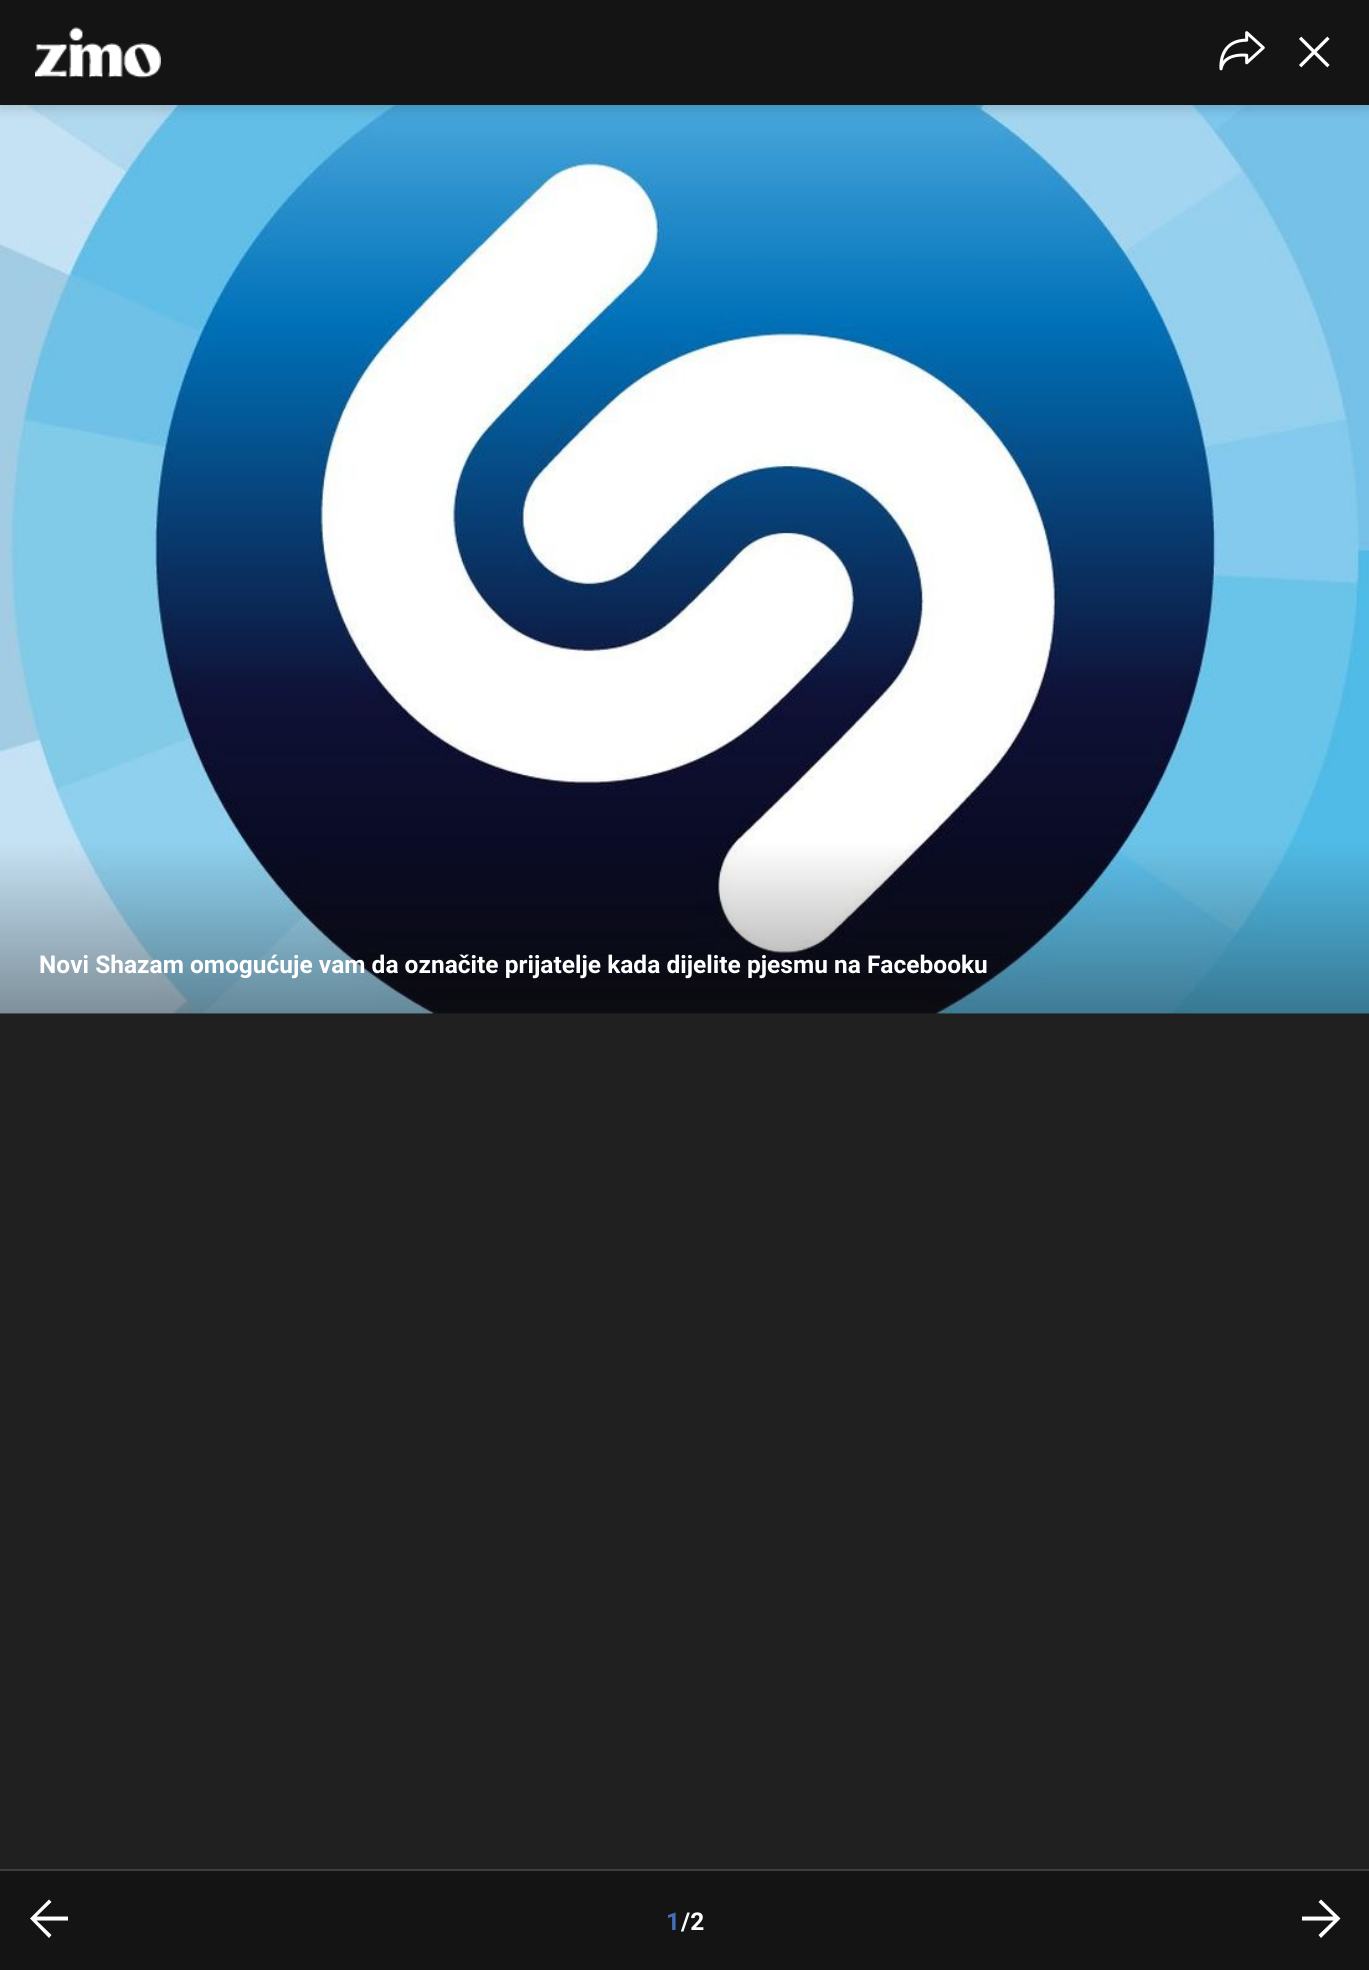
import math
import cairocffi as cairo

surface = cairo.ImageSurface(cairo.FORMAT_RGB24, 1369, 1970)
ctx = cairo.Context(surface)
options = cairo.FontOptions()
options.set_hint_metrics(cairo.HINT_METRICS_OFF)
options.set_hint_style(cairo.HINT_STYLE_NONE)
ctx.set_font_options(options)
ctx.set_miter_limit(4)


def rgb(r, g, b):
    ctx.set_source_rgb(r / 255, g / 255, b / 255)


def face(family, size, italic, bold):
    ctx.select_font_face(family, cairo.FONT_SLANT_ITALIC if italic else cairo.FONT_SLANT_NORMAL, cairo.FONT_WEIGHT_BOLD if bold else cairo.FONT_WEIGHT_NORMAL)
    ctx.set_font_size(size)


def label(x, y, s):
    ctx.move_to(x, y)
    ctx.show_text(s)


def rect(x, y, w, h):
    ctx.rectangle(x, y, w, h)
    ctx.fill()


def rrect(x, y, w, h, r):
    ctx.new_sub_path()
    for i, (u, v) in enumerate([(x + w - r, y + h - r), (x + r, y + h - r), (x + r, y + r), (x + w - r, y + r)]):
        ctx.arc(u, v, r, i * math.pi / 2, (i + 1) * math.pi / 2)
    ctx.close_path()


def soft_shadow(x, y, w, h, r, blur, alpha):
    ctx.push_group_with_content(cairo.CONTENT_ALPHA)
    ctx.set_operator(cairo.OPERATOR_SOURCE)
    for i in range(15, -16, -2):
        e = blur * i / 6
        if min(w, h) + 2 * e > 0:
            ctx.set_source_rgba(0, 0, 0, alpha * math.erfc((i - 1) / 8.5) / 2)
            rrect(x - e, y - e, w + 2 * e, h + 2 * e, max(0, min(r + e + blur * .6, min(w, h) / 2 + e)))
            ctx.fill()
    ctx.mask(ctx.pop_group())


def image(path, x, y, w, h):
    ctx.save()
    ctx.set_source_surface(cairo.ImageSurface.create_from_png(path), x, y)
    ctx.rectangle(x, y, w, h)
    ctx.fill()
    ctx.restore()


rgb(32, 32, 32)
ctx.paint()
image('image3.png', 0, 105, 1369, 909)
rgb(0, 0, 0)
soft_shadow(0, 4, 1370, 105, 0, 6, 0.15)
rgb(20, 20, 20)
rect(0, 0, 1369, 105)
image('image0.png', 35, 27, 126, 51)
image('image1.png', 1219, 31, 46, 40)
image('image2.png', 1299, 36, 31, 32)
face('Roboto', 24.5, 0, 1)
rgb(255, 255, 255)
label(39, 973, 'Novi Shazam omogućuje vam da označite prijatelje kada dijelite pjesmu na Facebooku')
rgb(20, 20, 20)
rect(0, 1871, 1369, 99)
rgb(61, 61, 61)
rect(0, 1869, 1369, 2)
rgb(255, 255, 255)
ctx.new_path()
ctx.move_to(49, 1938)
ctx.line_to(51.5, 1935)
ctx.line_to(36.5, 1920.5)
ctx.line_to(68, 1920.5)
ctx.line_to(68, 1916.5)
ctx.line_to(36.5, 1916.5)
ctx.line_to(51.5, 1902)
ctx.line_to(49, 1899.5)
ctx.line_to(30, 1918.5)
ctx.close_path()
ctx.fill()
rgb(66, 111, 181)
label(666, 1930, '1')
rgb(255, 255, 255)
label(681, 1930, '/2')
ctx.new_path()
ctx.move_to(1321, 1938)
ctx.line_to(1318.5, 1935)
ctx.line_to(1333.5, 1920.5)
ctx.line_to(1302, 1920.5)
ctx.line_to(1302, 1916.5)
ctx.line_to(1333.5, 1916.5)
ctx.line_to(1318.5, 1902)
ctx.line_to(1321, 1899.5)
ctx.line_to(1340.5, 1918.5)
ctx.close_path()
ctx.fill()
surface.write_to_png('render.png')
